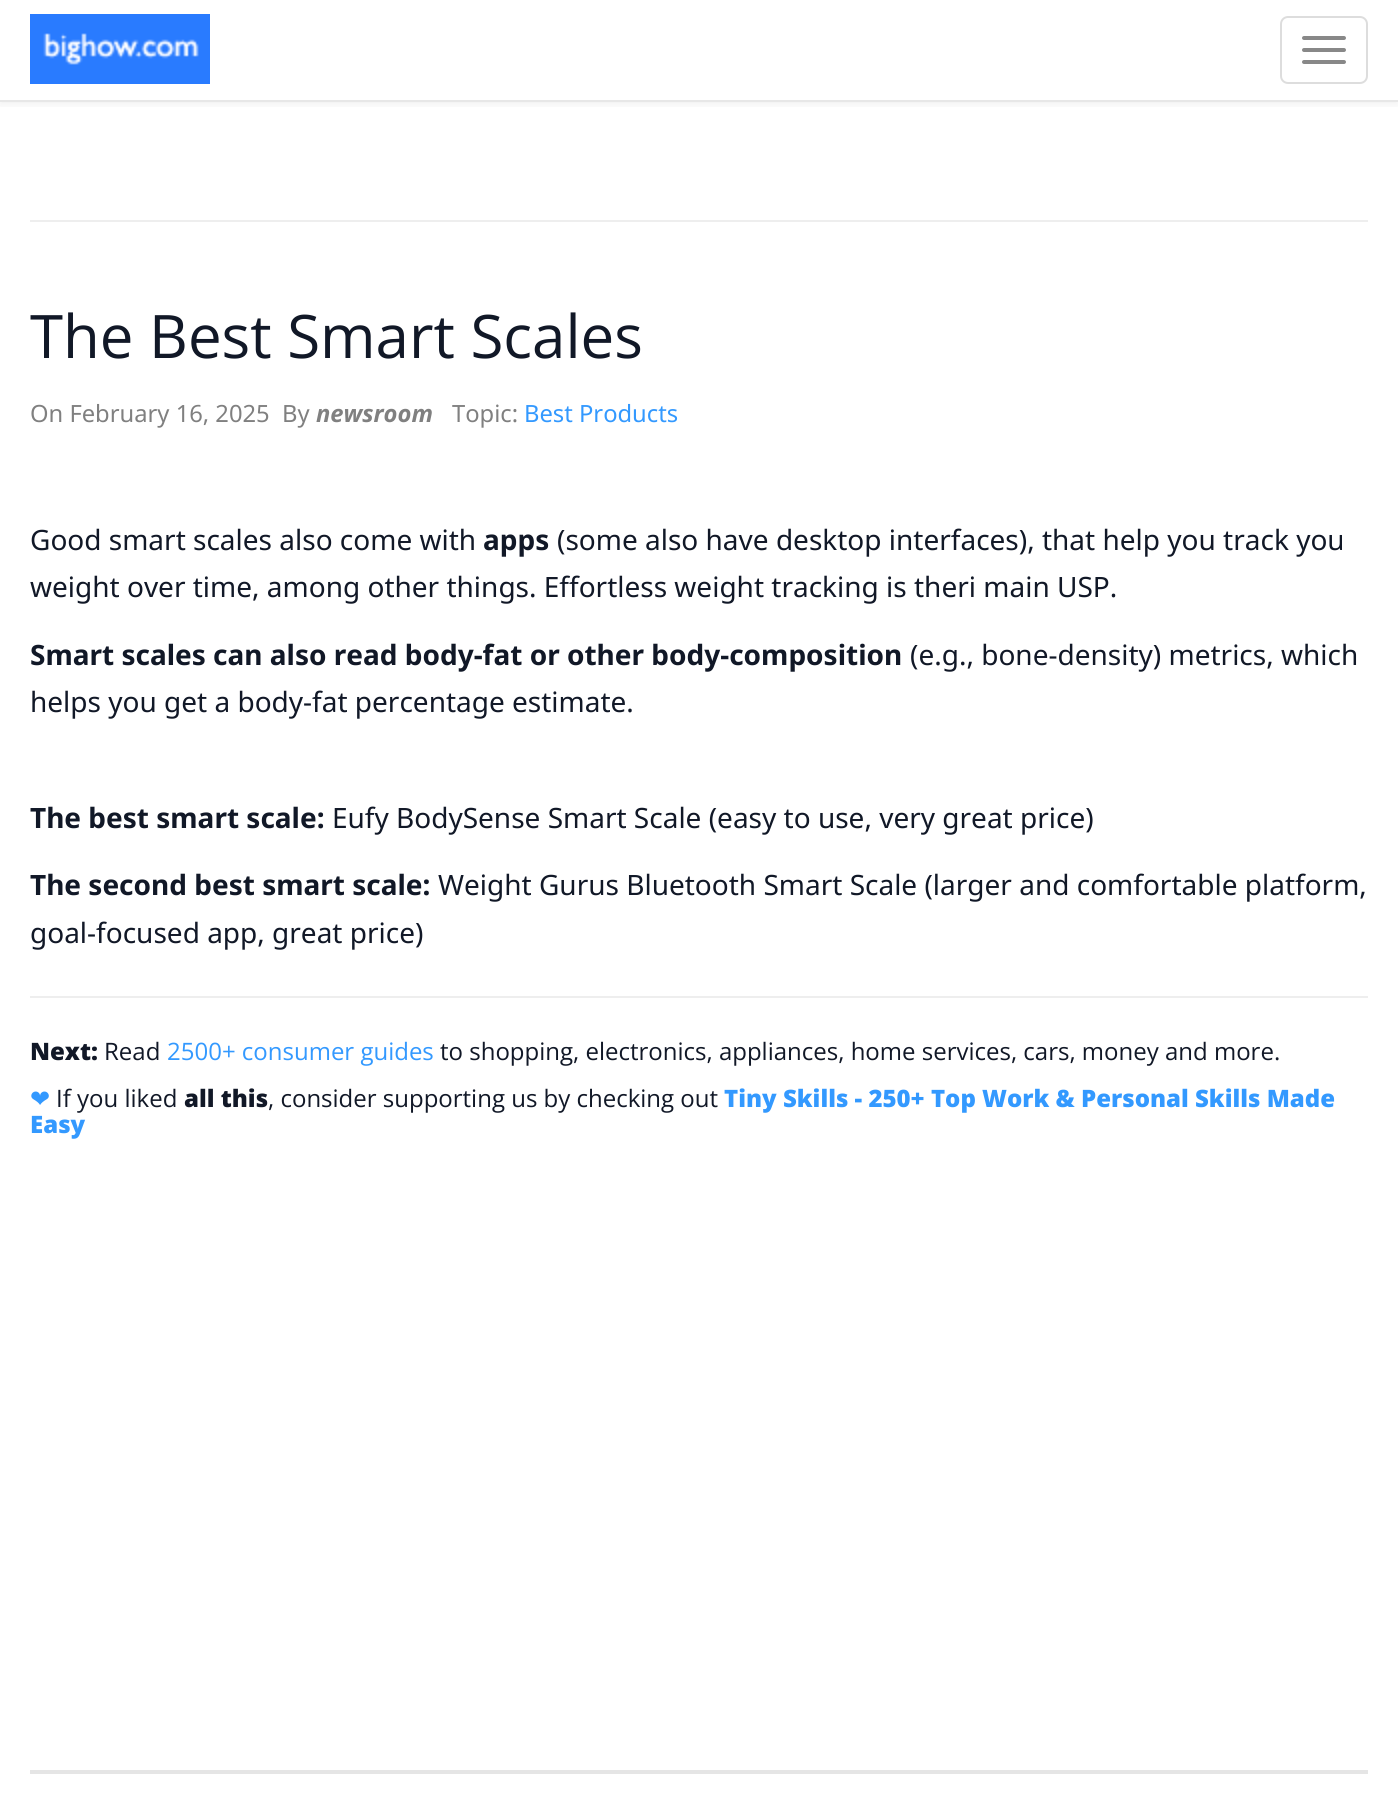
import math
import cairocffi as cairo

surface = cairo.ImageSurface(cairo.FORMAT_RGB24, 1398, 1795)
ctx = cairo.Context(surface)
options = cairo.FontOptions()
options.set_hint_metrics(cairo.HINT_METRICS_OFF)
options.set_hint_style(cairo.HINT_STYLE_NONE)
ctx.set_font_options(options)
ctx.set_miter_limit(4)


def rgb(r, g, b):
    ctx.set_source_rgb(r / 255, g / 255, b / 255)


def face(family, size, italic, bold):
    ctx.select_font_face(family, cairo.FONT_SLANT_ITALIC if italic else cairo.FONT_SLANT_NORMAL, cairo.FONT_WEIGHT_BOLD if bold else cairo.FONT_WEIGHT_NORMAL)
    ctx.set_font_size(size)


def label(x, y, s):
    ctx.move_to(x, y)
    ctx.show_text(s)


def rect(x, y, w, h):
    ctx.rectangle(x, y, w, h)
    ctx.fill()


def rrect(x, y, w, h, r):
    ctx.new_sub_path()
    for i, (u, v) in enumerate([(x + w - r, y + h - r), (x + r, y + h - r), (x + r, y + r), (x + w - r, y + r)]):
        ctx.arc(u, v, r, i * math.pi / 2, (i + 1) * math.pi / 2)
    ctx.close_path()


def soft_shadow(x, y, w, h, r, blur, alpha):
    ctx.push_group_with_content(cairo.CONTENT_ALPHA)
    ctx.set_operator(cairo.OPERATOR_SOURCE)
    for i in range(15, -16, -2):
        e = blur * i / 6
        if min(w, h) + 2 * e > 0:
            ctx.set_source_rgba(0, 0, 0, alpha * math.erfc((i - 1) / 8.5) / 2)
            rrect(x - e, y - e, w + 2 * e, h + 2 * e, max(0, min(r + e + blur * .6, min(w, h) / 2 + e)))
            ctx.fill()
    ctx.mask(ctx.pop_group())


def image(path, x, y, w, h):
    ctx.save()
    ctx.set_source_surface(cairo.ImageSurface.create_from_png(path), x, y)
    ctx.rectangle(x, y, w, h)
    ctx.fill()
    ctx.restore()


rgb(255, 255, 255)
ctx.paint()
ctx.save()
ctx.rectangle(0, 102, 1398, 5)
ctx.clip()
rgb(0, 0, 0)
soft_shadow(0, 2, 1398, 102, 0, 5, 0.07)
ctx.restore()
rgb(231, 231, 231)
rect(0, 100, 1398, 2)
image('image0.png', 30, 14, 180, 70)
rrect(1281, 17, 86, 66, 7)
rgb(221, 221, 221)
ctx.stroke()
rgb(136, 136, 136)
rrect(1302, 36, 44, 4, 2)
ctx.fill()
rrect(1302, 48, 44, 4, 2)
ctx.fill()
rrect(1302, 60, 44, 4, 2)
ctx.fill()
rgb(238, 238, 238)
rect(30, 220, 1338, 2)
face('Open Sans', 60, 0, 0)
rgb(17, 24, 39)
label(30, 358, 'The Best Smart Scales')
face('Noto Sans', 23.75, 0, 0)
rgb(128, 128, 128)
label(30, 422, 'On February 16, 2025')
label(282, 422, 'By')
face('Noto Sans', 23.75, 1, 1)
label(316, 422, 'newsroom')
face('Noto Sans', 23.75, 0, 0)
label(452, 422, 'Topic:')
rgb(51, 153, 255)
label(524, 422, 'Best Products')
face('Noto Sans', 28, 0, 0)
rgb(17, 24, 39)
label(30, 550, 'Good smart scales also come with')
face('Noto Sans', 28, 0, 1)
label(483, 550, 'apps')
face('Noto Sans', 28, 0, 0)
label(557, 550, '(some also have desktop interfaces), that help you track you')
label(30, 597, 'weight over time, among other things. Effortless weight tracking is theri main USP.')
face('Noto Sans', 28, 0, 1)
label(30, 665, 'Smart scales can also read body-fat or other body-composition')
face('Noto Sans', 28, 0, 0)
label(910, 665, '(e.g., bone-density) metrics, which')
label(30, 712, 'helps you get a body-fat percentage estimate.')
face('Noto Sans', 28, 0, 1)
label(30, 828, 'The best smart scale:')
face('Noto Sans', 28, 0, 0)
label(332, 828, 'Eufy BodySense Smart Scale (easy to use, very great price)')
face('Noto Sans', 28, 0, 1)
label(30, 895, 'The second best smart scale:')
face('Noto Sans', 28, 0, 0)
label(438, 895, 'Weight Gurus Bluetooth Smart Scale (larger and comfortable platform,')
label(30, 943, 'goal-focused app, great price)')
rgb(238, 238, 238)
rect(30, 996, 1338, 2)
face('Open Sans ExtraBold', 24, 0, 0)
rgb(17, 24, 39)
label(30, 1060, 'Next:')
face('Open Sans', 24, 0, 0)
label(104, 1060, 'Read')
rgb(51, 153, 255)
label(167, 1060, '2500+ consumer guides')
rgb(17, 24, 39)
label(440, 1060, 'to shopping, electronics, appliances, home services, cars, money and more.')
face('DejaVu Sans', 24, 0, 0)
rgb(51, 153, 255)
label(30, 1107, '❤')
face('Open Sans', 24, 0, 0)
rgb(17, 24, 39)
label(56, 1107, 'If you liked')
face('Open Sans ExtraBold', 24, 0, 0)
label(184, 1107, 'all this')
face('Open Sans', 24, 0, 0)
label(268, 1107, ', consider supporting us by checking out')
face('Open Sans ExtraBold', 24, 0, 0)
rgb(51, 153, 255)
label(724, 1107, 'Tiny Skills - 250+ Top Work & Personal Skills Made')
label(30, 1133, 'Easy')
rgb(229, 229, 229)
rect(30, 1770, 1338, 4)
surface.write_to_png('render.png')
